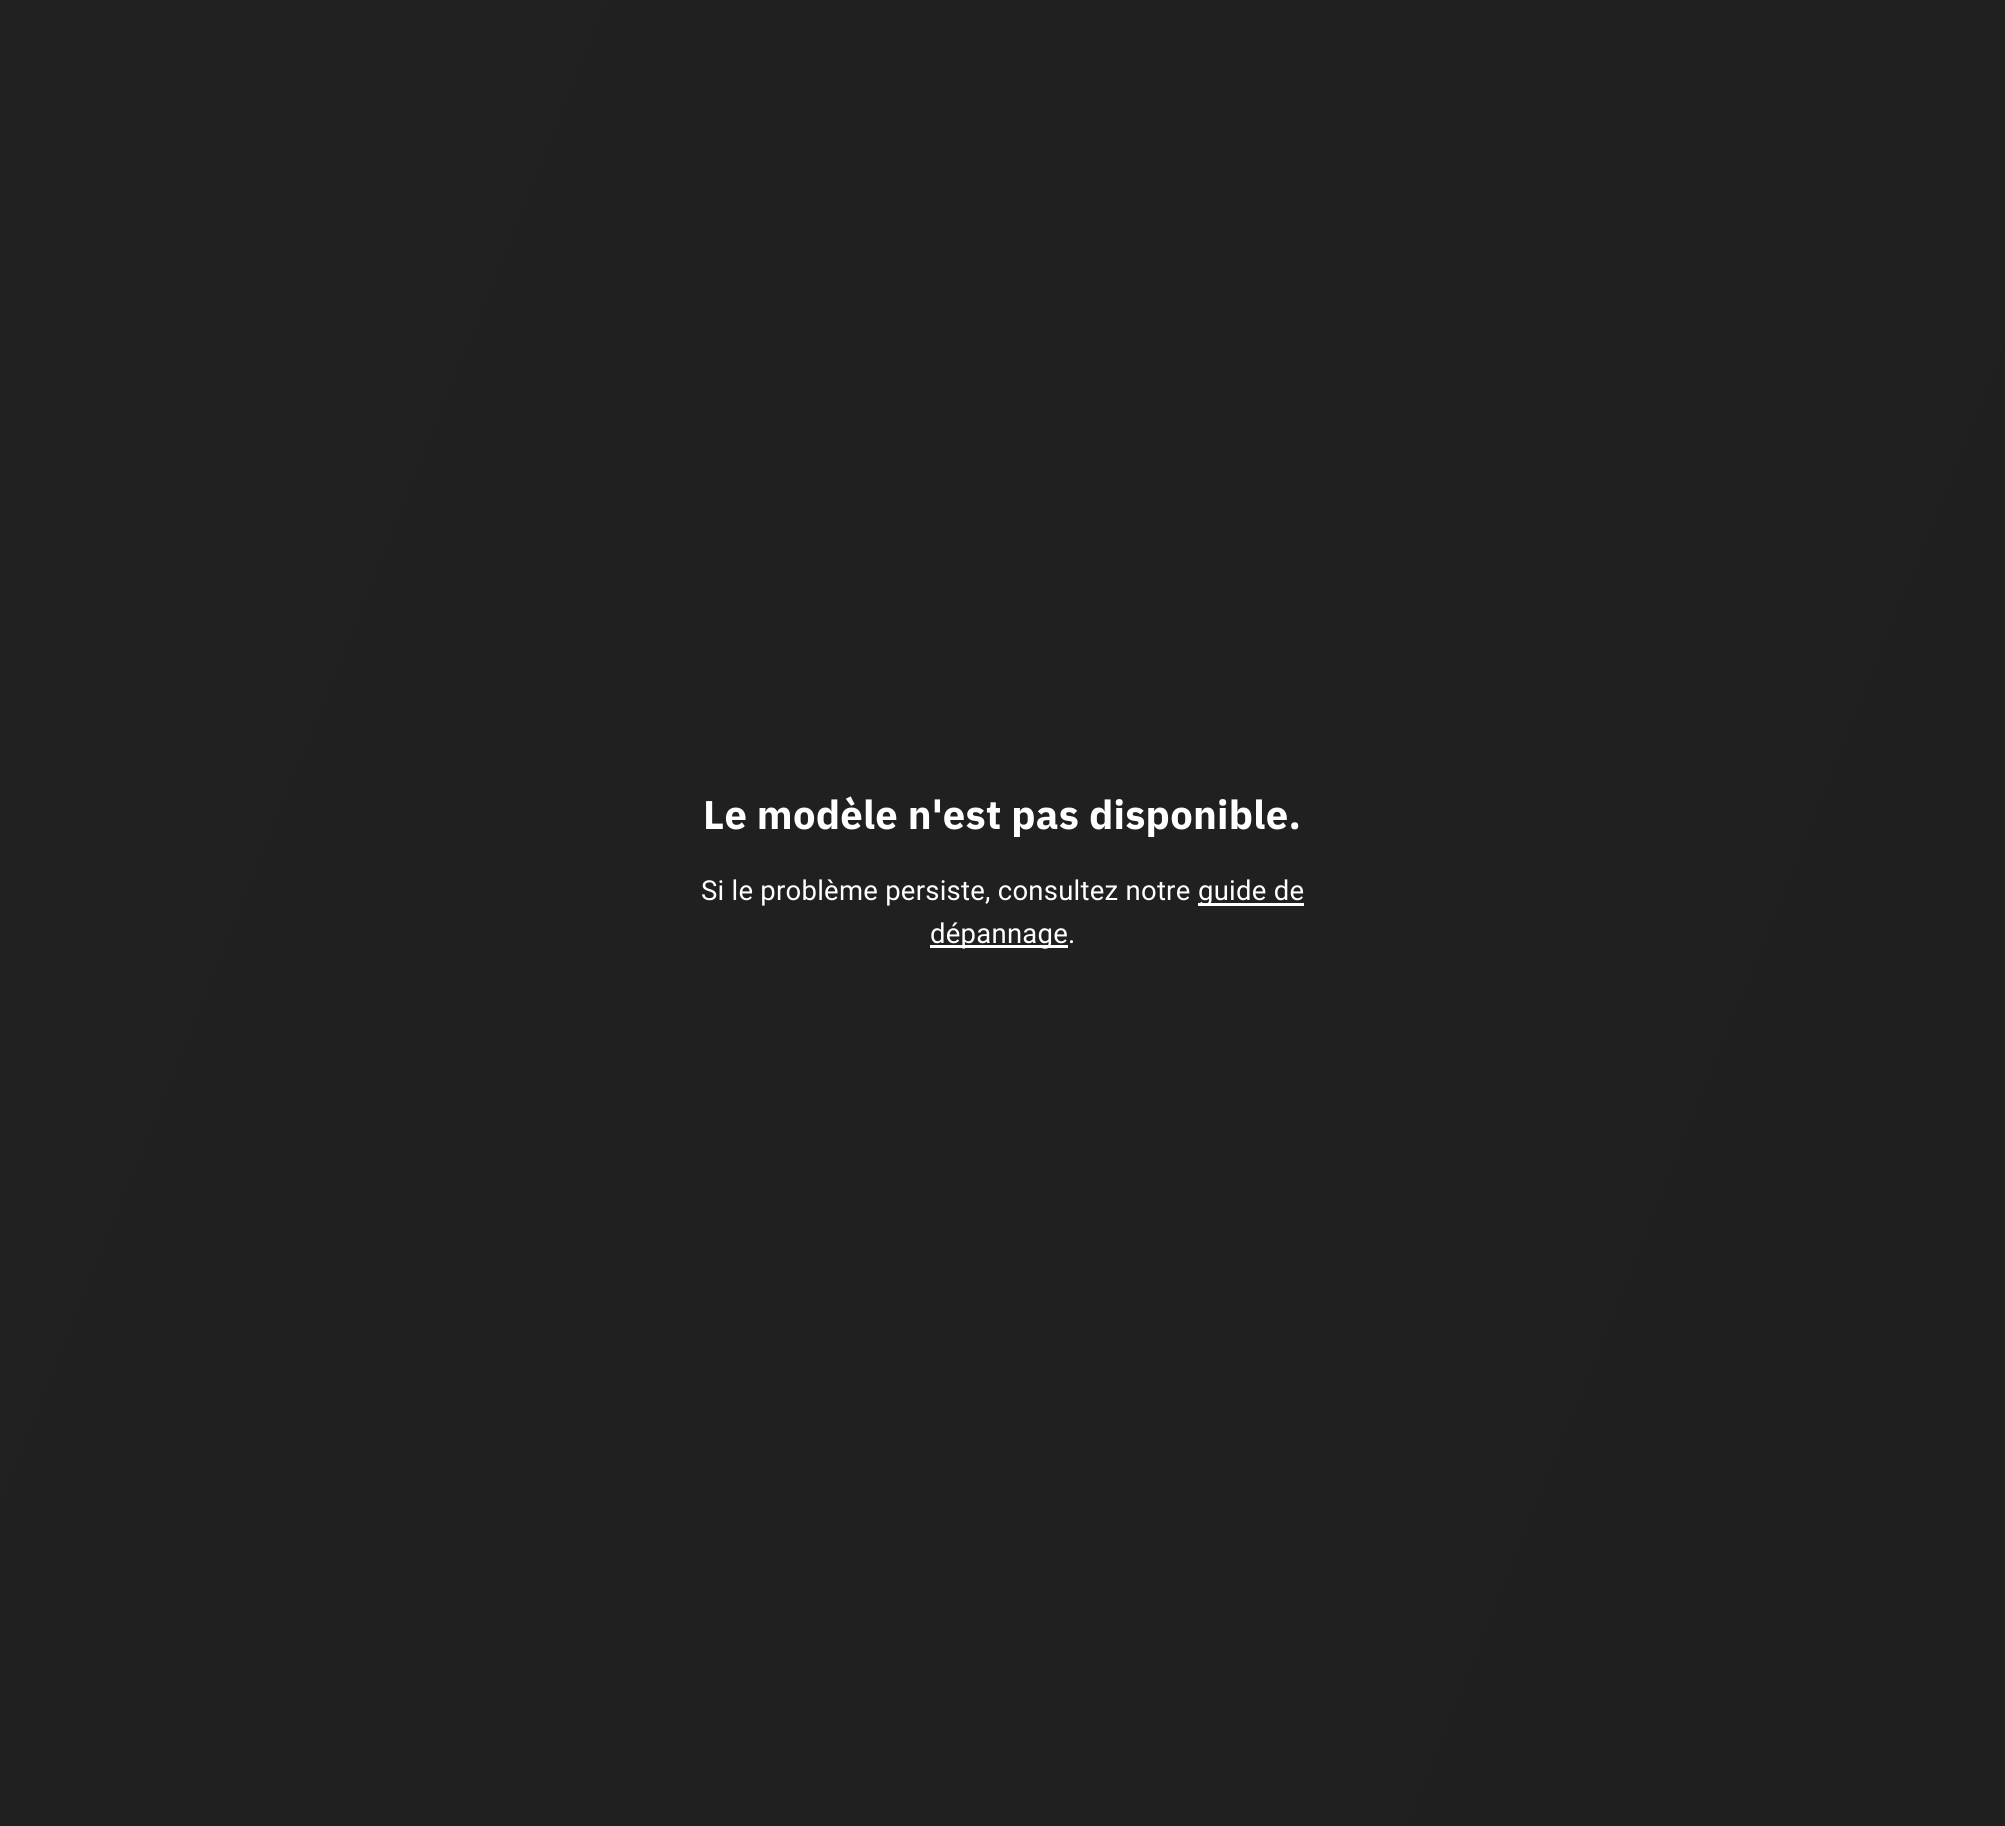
import math
import cairocffi as cairo

surface = cairo.ImageSurface(cairo.FORMAT_RGB24, 2005, 1826)
ctx = cairo.Context(surface)
options = cairo.FontOptions()
options.set_hint_metrics(cairo.HINT_METRICS_OFF)
options.set_hint_style(cairo.HINT_STYLE_NONE)
ctx.set_font_options(options)
ctx.set_miter_limit(4)


def rgb(r, g, b):
    ctx.set_source_rgb(r / 255, g / 255, b / 255)


def face(family, size, italic, bold):
    ctx.select_font_face(family, cairo.FONT_SLANT_ITALIC if italic else cairo.FONT_SLANT_NORMAL, cairo.FONT_WEIGHT_BOLD if bold else cairo.FONT_WEIGHT_NORMAL)
    ctx.set_font_size(size)


def tracked(x, y, s, letter, word):
    ctx.move_to(x, y)
    for ch in s:
        ctx.show_text(ch)
        ctx.rel_move_to(letter + word * (ch == ' '), 0)


def rect(x, y, w, h):
    ctx.rectangle(x, y, w, h)
    ctx.fill()


rgb(255, 255, 255)
ctx.paint()
gradient = cairo.LinearGradient(-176, 437, 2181, 1389)
gradient.add_color_stop_rgba(0, 0.129, 0.129, 0.129, 1)
gradient.add_color_stop_rgba(1, 0.122, 0.122, 0.122, 1)
ctx.set_source(gradient)
rect(0, 0, 2005, 1826)
face('IBM Plex Sans', 40, 0, 1)
rgb(255, 255, 255)
tracked(703, 829, 'Le modèle n\'est pas disponible.', 0.25, 0)
face('Roboto', 27.5, 0, 0)
tracked(701, 900, 'Si le problème persiste, consultez notre', 0.25, 0)
rect(1198, 903, 106, 3)
tracked(1198, 900, 'guide de', 0.25, 0)
rect(930, 945, 138, 3)
tracked(930, 943, 'dépannage.', 0.25, 0)
surface.write_to_png('render.png')
